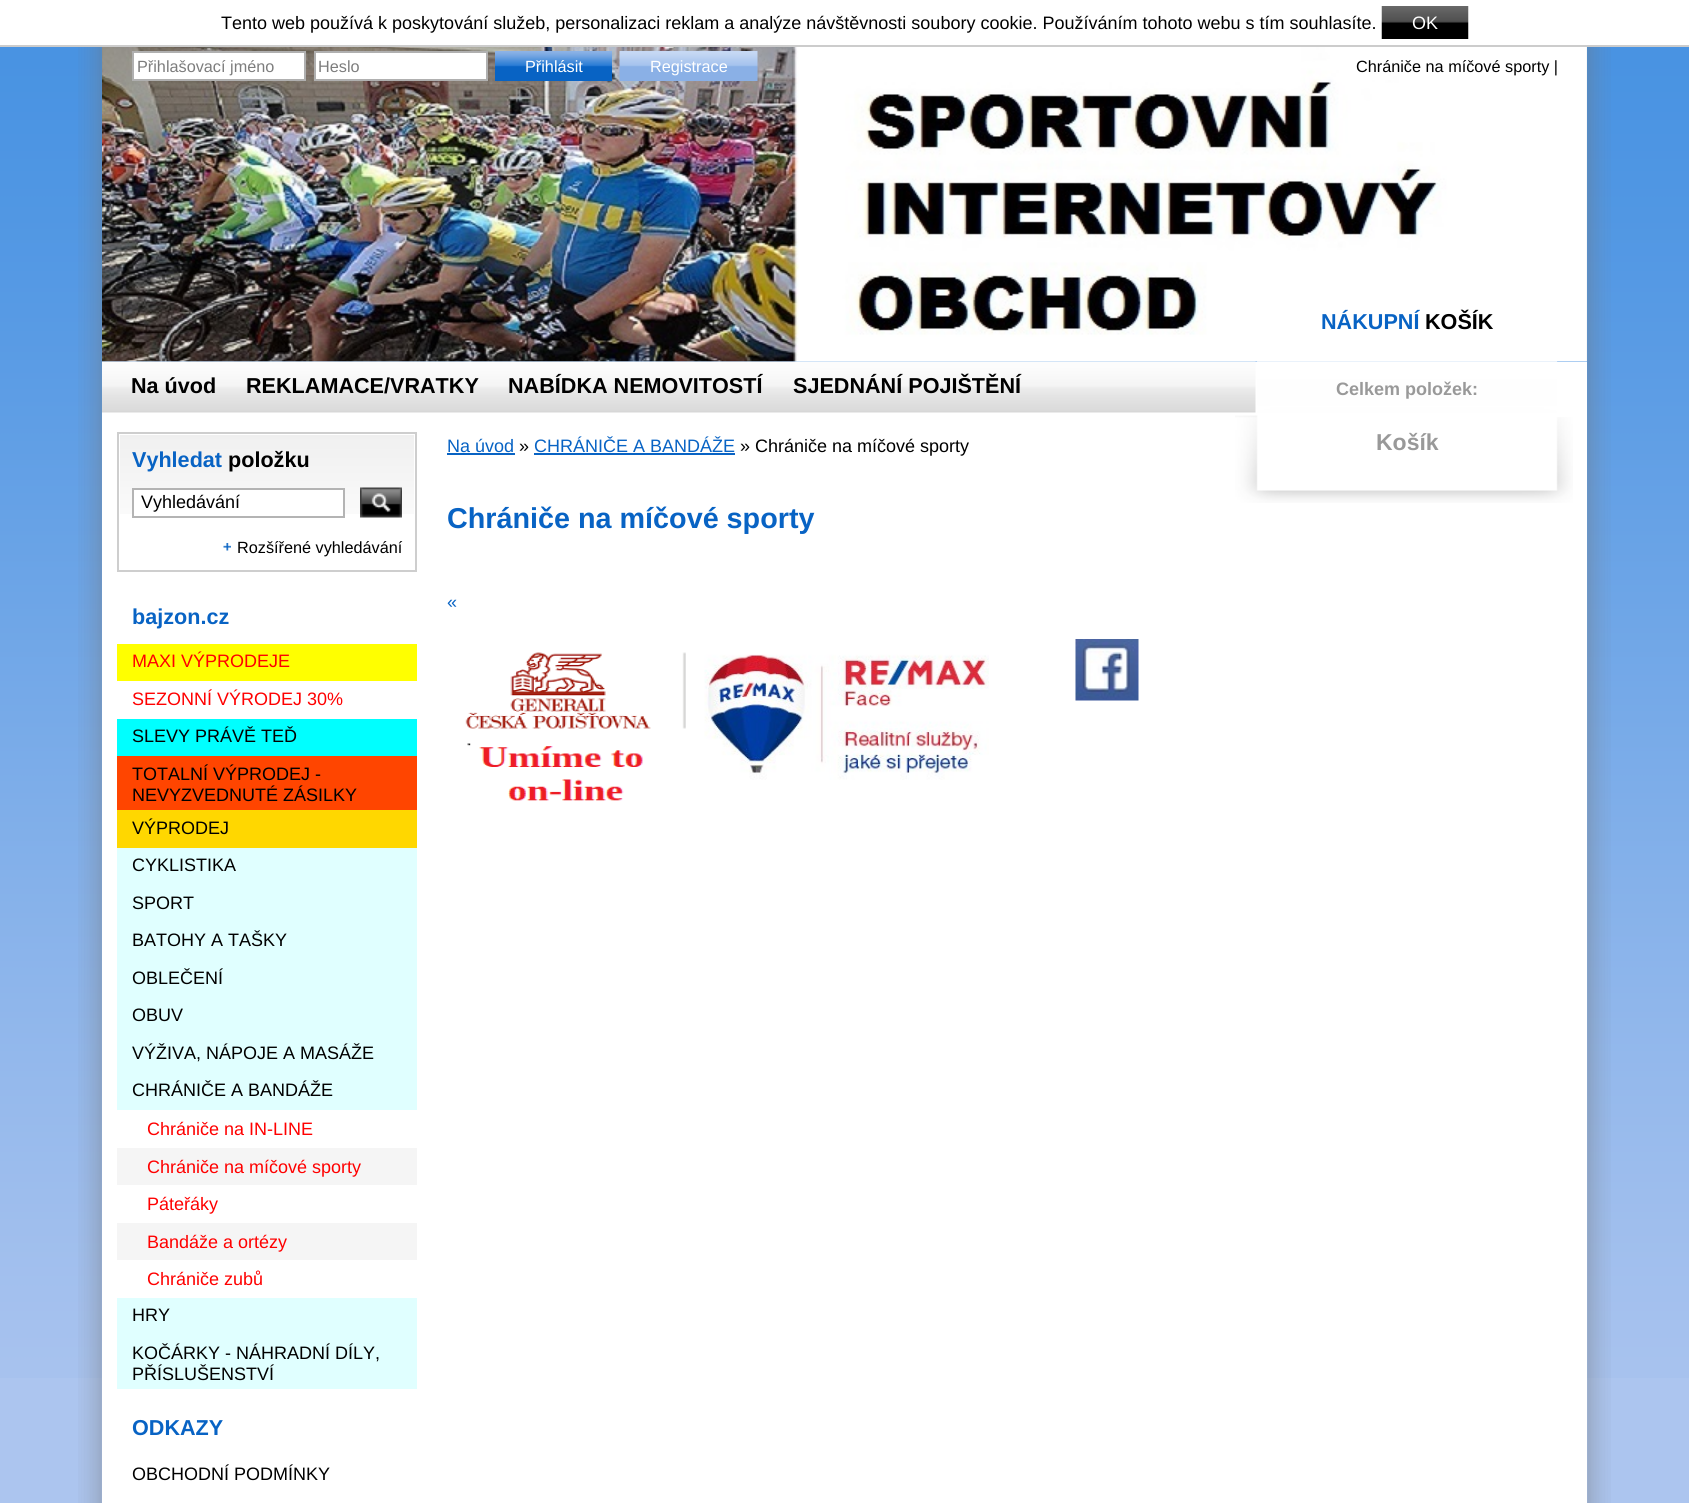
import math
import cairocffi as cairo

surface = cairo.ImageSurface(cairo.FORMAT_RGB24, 1689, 1503)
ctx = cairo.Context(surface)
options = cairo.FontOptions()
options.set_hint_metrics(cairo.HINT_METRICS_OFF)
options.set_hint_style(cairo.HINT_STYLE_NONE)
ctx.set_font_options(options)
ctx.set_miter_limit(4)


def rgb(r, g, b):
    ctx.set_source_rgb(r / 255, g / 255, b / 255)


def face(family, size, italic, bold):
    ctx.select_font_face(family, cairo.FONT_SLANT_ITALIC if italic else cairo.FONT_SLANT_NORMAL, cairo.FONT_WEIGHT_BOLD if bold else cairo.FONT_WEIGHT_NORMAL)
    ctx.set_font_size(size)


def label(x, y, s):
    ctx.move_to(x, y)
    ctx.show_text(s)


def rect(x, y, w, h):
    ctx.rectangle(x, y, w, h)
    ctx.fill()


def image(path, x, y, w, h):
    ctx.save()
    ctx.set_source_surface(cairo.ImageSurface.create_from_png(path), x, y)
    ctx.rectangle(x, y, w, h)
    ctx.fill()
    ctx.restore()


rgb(172, 197, 239)
ctx.paint()
image('image0.png', 0, 47, 1689, 1331)
image('image1.png', 102, 47, 1485, 315)
image('image2.png', 78, 47, 1533, 1456)
rgb(255, 255, 255)
rect(0, 0, 1689, 45)
rgb(204, 204, 204)
rect(0, 45, 1689, 2)
face('Liberation Sans', 18, 0, 0)
rgb(0, 0, 0)
label(221, 29, 'Tento web používá k poskytování služeb, personalizaci reklam a analýze návštěvnosti soubory cookie. Používáním tohoto webu s tím souhlasíte.')
image('image3.png', 1381, 6, 88, 33)
rgb(255, 255, 255)
label(1412, 29, 'OK')
ctx.rectangle(133, 52, 172, 28)
ctx.fill_preserve()
rgb(176, 176, 176)
ctx.stroke()
face('Liberation Sans', 16.25, 0, 0)
rgb(125, 125, 125)
label(137, 72, 'Přihlašovací jméno')
rgb(255, 255, 255)
ctx.rectangle(315, 52, 172, 28)
ctx.fill_preserve()
rgb(176, 176, 176)
ctx.stroke()
rgb(125, 125, 125)
label(318, 72, 'Heslo')
image('image4.png', 495, 51, 117, 30)
rgb(255, 255, 255)
label(525, 72, 'Přihlásit')
image('image5.png', 619, 51, 139, 30)
label(650, 72, 'Registrace')
rgb(0, 0, 0)
label(1356, 72, 'Chrániče na míčové sporty |')
rgb(255, 255, 255)
rect(102, 362, 1485, 1141)
ctx.rectangle(118, 433, 298, 138)
rgb(206, 206, 206)
ctx.stroke()
image('image6.png', 120, 435, 294, 79)
face('Liberation Sans', 21.6, 0, 1)
rgb(8, 99, 196)
label(132, 467, 'Vyhledat')
rgb(0, 0, 0)
label(228, 467, 'položku')
rgb(255, 255, 255)
rect(134, 490, 209, 24)
ctx.rectangle(133, 489, 211, 28)
rgb(180, 180, 180)
ctx.stroke()
face('Liberation Sans', 18, 0, 0)
rgb(0, 0, 0)
label(141, 508, 'Vyhledávání')
image('image7.png', 360, 487, 42, 31)
image('image8.png', 223, 543, 8, 8)
face('Liberation Sans', 16.25, 0, 0)
label(237, 553, 'Rozšířené vyhledávání')
face('Liberation Sans', 21.6, 0, 1)
rgb(8, 99, 196)
label(132, 624, 'bajzon.cz')
rgb(255, 255, 0)
rect(117, 644, 300, 37)
face('Liberation Sans', 18, 0, 0)
rgb(255, 0, 0)
label(132, 667, 'MAXI VÝPRODEJE')
label(132, 705, 'SEZONNÍ VÝRODEJ 30%')
rgb(0, 255, 255)
rect(117, 719, 300, 37)
rgb(0, 0, 0)
label(132, 742, 'SLEVY PRÁVĚ TEĎ')
rgb(255, 69, 0)
rect(117, 756, 300, 54)
rgb(0, 0, 0)
label(132, 780, 'TOTALNÍ VÝPRODEJ -')
label(132, 801, 'NEVYZVEDNUTÉ ZÁSILKY')
rgb(255, 215, 0)
rect(117, 810, 300, 38)
rgb(0, 0, 0)
label(132, 834, 'VÝPRODEJ')
rgb(224, 255, 255)
rect(117, 848, 300, 262)
rgb(0, 0, 0)
label(132, 871, 'CYKLISTIKA')
label(132, 909, 'SPORT')
label(132, 946, 'BATOHY A TAŠKY')
label(132, 984, 'OBLEČENÍ')
label(132, 1021, 'OBUV')
label(132, 1059, 'VÝŽIVA, NÁPOJE A MASÁŽE')
label(132, 1096, 'CHRÁNIČE A BANDÁŽE')
rgb(255, 0, 0)
label(147, 1135, 'Chrániče na IN-LINE')
rgb(245, 245, 245)
rect(117, 1148, 300, 37)
rgb(255, 0, 0)
label(147, 1173, 'Chrániče na míčové sporty')
label(147, 1210, 'Páteřáky')
rgb(245, 245, 245)
rect(117, 1223, 300, 37)
rgb(255, 0, 0)
label(147, 1248, 'Bandáže a ortézy')
label(147, 1285, 'Chrániče zubů')
rgb(224, 255, 255)
rect(117, 1298, 300, 91)
rgb(0, 0, 0)
label(132, 1321, 'HRY')
label(132, 1359, 'KOČÁRKY - NÁHRADNÍ DÍLY,')
label(132, 1380, 'PŘÍSLUŠENSTVÍ')
face('Liberation Sans', 21.6, 0, 1)
rgb(8, 99, 196)
label(132, 1435, 'ODKAZY')
face('Liberation Sans', 18, 0, 0)
rgb(0, 0, 0)
label(132, 1480, 'OBCHODNÍ PODMÍNKY')
rgb(8, 99, 196)
label(447, 452, 'Na úvod')
rect(447, 453, 68, 2)
rgb(0, 0, 0)
label(519, 452, '»')
rgb(8, 99, 196)
label(534, 452, 'CHRÁNIČE A BANDÁŽE')
rect(534, 453, 201, 2)
rgb(0, 0, 0)
label(740, 452, '» Chrániče na míčové sporty')
face('Liberation Sans', 28.75, 0, 1)
rgb(8, 99, 196)
label(447, 528, 'Chrániče na míčové sporty')
face('Liberation Sans', 18, 0, 0)
label(447, 608, '«')
image('image9.png', 465, 652, 221, 149)
image('image10.png', 704, 654, 285, 126)
image('image11.png', 1075, 639, 64, 62)
image('image13.png', 1235, 361, 338, 142)
image('image12.png', 102, 361, 1154, 52)
face('Liberation Sans', 21.6, 0, 1)
rgb(0, 0, 0)
label(131, 393, 'Na úvod')
label(246, 393, 'REKLAMACE/VRATKY')
label(508, 393, 'NABÍDKA NEMOVITOSTÍ')
label(793, 393, 'SJEDNÁNÍ POJIŠTĚNÍ')
ctx.set_source_rgba(1, 1, 1, 0.49)
rect(1257, 361, 300, 1)
rgb(8, 99, 196)
label(1321, 329, 'NÁKUPNÍ')
rgb(0, 0, 0)
label(1425, 329, 'KOŠÍK')
face('Liberation Sans', 18, 0, 1)
rgb(153, 153, 153)
label(1336, 395, 'Celkem položek:')
face('Liberation Sans', 23, 0, 1)
label(1376, 450, 'Košík')
surface.write_to_png('render.png')
